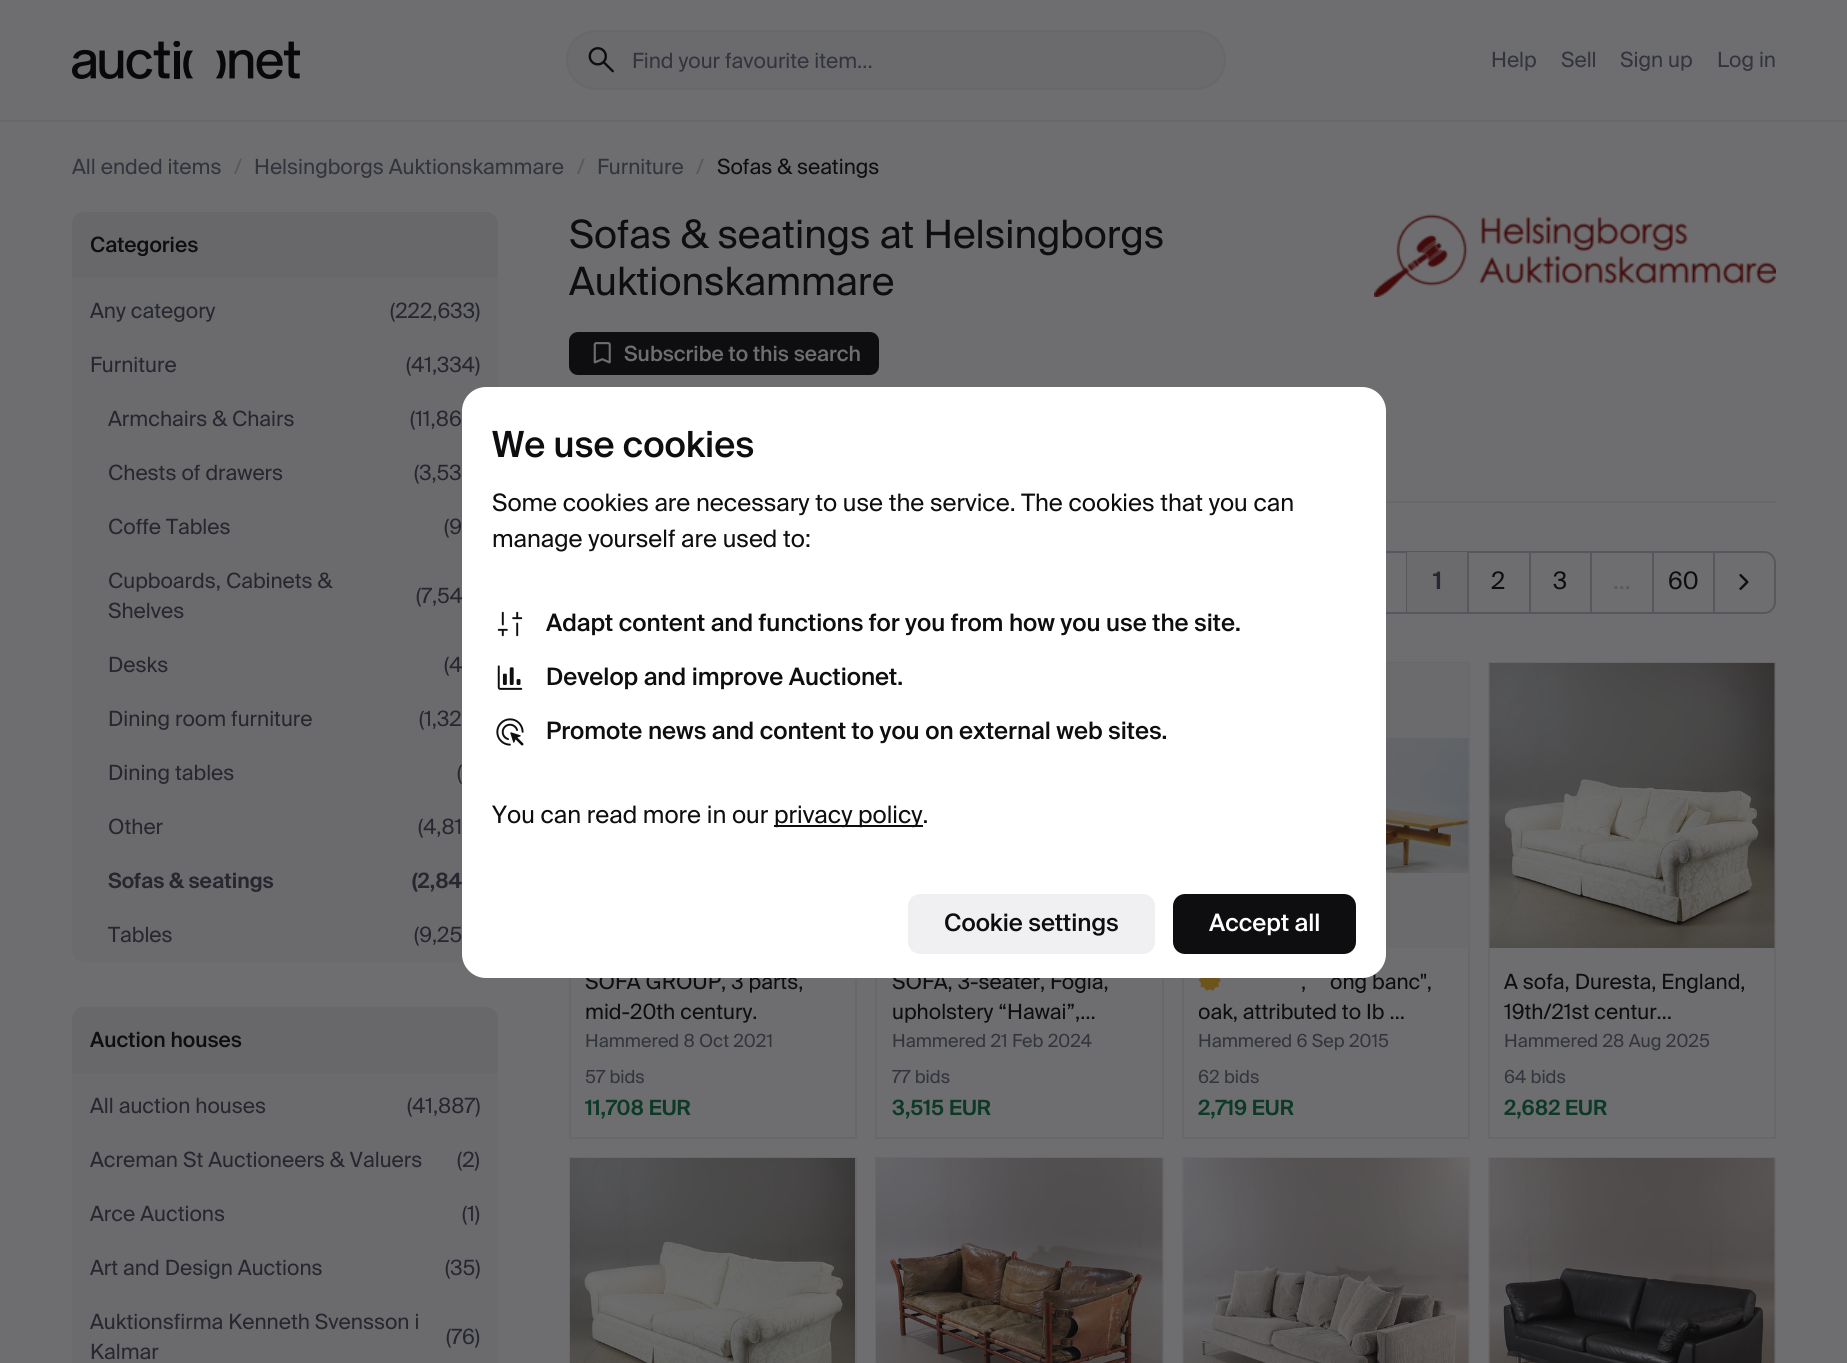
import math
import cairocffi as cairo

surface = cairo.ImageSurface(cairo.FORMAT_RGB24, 1847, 1363)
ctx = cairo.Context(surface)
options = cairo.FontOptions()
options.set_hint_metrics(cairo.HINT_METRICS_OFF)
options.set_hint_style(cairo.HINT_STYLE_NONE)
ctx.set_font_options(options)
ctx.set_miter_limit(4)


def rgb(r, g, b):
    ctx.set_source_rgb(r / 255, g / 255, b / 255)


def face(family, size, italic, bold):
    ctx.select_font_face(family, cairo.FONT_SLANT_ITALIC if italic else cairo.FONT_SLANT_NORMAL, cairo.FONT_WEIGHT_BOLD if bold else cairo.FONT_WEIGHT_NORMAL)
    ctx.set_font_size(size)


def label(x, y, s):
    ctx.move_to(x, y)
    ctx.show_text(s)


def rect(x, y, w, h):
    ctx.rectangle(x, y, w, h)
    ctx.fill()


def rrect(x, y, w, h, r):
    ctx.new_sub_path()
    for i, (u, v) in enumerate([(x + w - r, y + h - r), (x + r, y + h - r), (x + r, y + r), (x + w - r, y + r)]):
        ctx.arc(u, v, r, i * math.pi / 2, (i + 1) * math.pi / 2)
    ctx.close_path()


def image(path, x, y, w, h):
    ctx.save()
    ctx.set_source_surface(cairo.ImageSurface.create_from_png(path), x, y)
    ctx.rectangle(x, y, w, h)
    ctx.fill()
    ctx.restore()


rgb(110, 110, 112)
ctx.paint()
rgb(104, 104, 107)
rect(0, 120, 1847, 2)
image('image0.png', 72, 41, 228, 38)
rgb(107, 107, 109)
rrect(567, 31, 658, 58, 29)
ctx.fill_preserve()
rgb(104, 104, 107)
ctx.stroke()
image('image1.png', 588, 47, 26, 26)
face('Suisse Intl', 21, 0, 0)
rgb(50, 52, 62)
label(632, 68, 'Find your favourite item...')
label(1491, 67, 'Help')
label(1561, 67, 'Sell')
label(1620, 67, 'Sign up')
label(1717, 67, 'Log in')
label(72, 174, 'All ended items')
rgb(87, 88, 93)
label(234, 174, '/')
rgb(50, 52, 62)
label(254, 174, 'Helsingborgs Auktionskammare')
rgb(87, 88, 93)
label(577, 174, '/')
rgb(50, 52, 62)
label(597, 174, 'Furniture')
rgb(87, 88, 93)
label(696, 174, '/')
rgb(14, 14, 16)
label(717, 174, 'Sofas & seatings')
rgb(107, 107, 109)
rrect(72, 212, 426, 750, 12)
ctx.fill()
rgb(104, 104, 107)
ctx.new_path()
ctx.move_to(84, 212)
ctx.line_to(486, 212)
ctx.curve_to(492.5, 212, 498, 217.5, 498, 224)
ctx.line_to(498, 278)
ctx.line_to(72, 278)
ctx.line_to(72, 224)
ctx.curve_to(72, 217.5, 77.5, 212, 84, 212)
ctx.close_path()
ctx.fill()
face('Suisse Intl Medium', 21, 0, 0)
rgb(14, 14, 16)
label(90, 252, 'Categories')
face('Suisse Intl', 21, 0, 0)
rgb(38, 39, 48)
label(90, 318, 'Any category')
label(390, 318, '(222,633)')
label(90, 372, 'Furniture')
label(406, 372, '(41,334)')
label(108, 426, 'Armchairs & Chairs')
label(410, 426, '(11,86')
label(108, 480, 'Chests of drawers')
label(414, 480, '(3,53')
label(108, 534, 'Coffe Tables')
label(444, 534, '(9')
label(108, 588, 'Cupboards, Cabinets &')
label(108, 618, 'Shelves')
label(416, 603, '(7,54')
label(108, 672, 'Desks')
label(444, 672, '(4')
label(108, 726, 'Dining room furniture')
label(419, 726, '(1,32')
label(108, 780, 'Dining tables')
label(457, 780, '(')
label(108, 834, 'Other')
label(418, 834, '(4,81')
face('Suisse Intl SemiBold', 21, 0, 0)
label(108, 888, 'Sofas & seatings')
label(412, 888, '(2,84')
face('Suisse Intl', 21, 0, 0)
label(108, 942, 'Tables')
label(414, 942, '(9,25')
rgb(107, 107, 109)
rrect(72, 1007, 426, 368, 12)
ctx.fill()
rgb(104, 104, 107)
ctx.new_path()
ctx.move_to(84, 1007)
ctx.line_to(486, 1007)
ctx.curve_to(492.5, 1007, 498, 1012.5, 498, 1019)
ctx.line_to(498, 1073)
ctx.line_to(72, 1073)
ctx.line_to(72, 1019)
ctx.curve_to(72, 1012.5, 77.5, 1007, 84, 1007)
ctx.close_path()
ctx.fill()
face('Suisse Intl Medium', 21, 0, 0)
rgb(14, 14, 16)
label(90, 1047, 'Auction houses')
face('Suisse Intl', 21, 0, 0)
rgb(38, 39, 48)
label(90, 1113, 'All auction houses')
label(407, 1113, '(41,887)')
label(90, 1167, 'Acreman St Auctioneers & Valuers')
label(457, 1167, '(2)')
label(90, 1221, 'Arce Auctions')
label(462, 1221, '(1)')
label(90, 1275, 'Art and Design Auctions')
label(445, 1275, '(35)')
label(90, 1329, 'Auktionsfirma Kenneth Svensson i')
label(90, 1359, 'Kalmar')
label(446, 1344, '(76)')
face('Suisse Intl', 39, 0, 0)
rgb(14, 14, 16)
label(569, 248, 'Sofas & seatings at Helsingborgs')
label(569, 295, 'Auktionskammare')
image('image2.png', 1374, 214, 402, 83)
rrect(569, 332, 310, 43, 9)
ctx.fill()
image('image3.png', 593, 342, 18, 22)
face('Suisse Intl Medium', 21, 0, 0)
rgb(110, 110, 112)
label(624, 361, 'Subscribe to this search')
rgb(104, 104, 107)
rect(1386, 501, 390, 2)
rrect(1345, 552, 430, 61, 11)
rgb(87, 88, 93)
ctx.stroke()
rect(1406, 552, 1, 60)
rect(1467, 552, 2, 60)
rgb(107, 107, 109)
rect(1407, 552, 60, 60)
face('Suisse Intl SemiBold', 24, 0, 0)
rgb(38, 39, 48)
label(1433, 589, '1')
rgb(87, 88, 93)
rect(1529, 552, 2, 60)
face('Suisse Intl', 24, 0, 0)
rgb(14, 14, 16)
label(1491, 589, '2')
rgb(87, 88, 93)
rect(1590, 552, 2, 60)
rgb(14, 14, 16)
label(1553, 589, '3')
rgb(87, 88, 93)
rect(1652, 552, 2, 60)
label(1613, 589, '…')
rect(1713, 552, 2, 60)
rgb(14, 14, 16)
label(1668, 589, '60')
image('image4.png', 1739, 574, 10, 16)
ctx.rectangle(570, 663, 286, 475)
rgb(104, 104, 107)
ctx.stroke()
face('Suisse Intl', 21, 0, 0)
rgb(14, 14, 16)
label(585, 989, 'SOFA GROUP, 3 parts,')
label(585, 1019, 'mid-20th century.')
face('Suisse Intl', 18, 0, 0)
rgb(50, 52, 62)
label(585, 1047, 'Hammered 8 Oct 2021')
label(585, 1083, '57 bids')
face('Suisse Intl SemiBold', 21, 0, 0)
rgb(12, 58, 38)
label(585, 1115, '11,708 EUR')
ctx.rectangle(876, 663, 287, 475)
rgb(104, 104, 107)
ctx.stroke()
face('Suisse Intl', 21, 0, 0)
rgb(14, 14, 16)
label(892, 989, 'SOFA, 3-seater, Fogia,')
label(892, 1019, 'upholstery “Hawai”,…')
face('Suisse Intl', 18, 0, 0)
rgb(50, 52, 62)
label(892, 1047, 'Hammered 21 Feb 2024')
label(892, 1083, '77 bids')
face('Suisse Intl SemiBold', 21, 0, 0)
rgb(12, 58, 38)
label(892, 1115, '3,515 EUR')
ctx.rectangle(1183, 663, 286, 475)
rgb(104, 104, 107)
ctx.stroke()
rgb(107, 107, 109)
rect(1386, 663, 83, 285)
image('image5.png', 1386, 738, 83, 135)
image('image6.png', 1199, 978, 22, 13)
face('Suisse Intl', 21, 0, 0)
rgb(14, 14, 16)
label(1301, 989, ',')
label(1330, 989, 'ong banc",')
ctx.save()
ctx.rectangle(1199, 966, 255, 60)
ctx.clip()
label(1198, 1019, 'oak, attributed to Ib …')
ctx.restore()
face('Suisse Intl', 18, 0, 0)
rgb(50, 52, 62)
label(1198, 1047, 'Hammered 6 Sep 2015')
label(1198, 1083, '62 bids')
face('Suisse Intl SemiBold', 21, 0, 0)
rgb(12, 58, 38)
label(1198, 1115, '2,719 EUR')
ctx.rectangle(1489, 663, 286, 475)
rgb(104, 104, 107)
ctx.stroke()
rgb(107, 107, 109)
rect(1774, 663, 1, 285)
image('image7.png', 1489, 663, 286, 285)
face('Suisse Intl', 21, 0, 0)
rgb(14, 14, 16)
label(1504, 989, 'A sofa, Duresta, England,')
label(1504, 1019, '19th/21st centur…')
face('Suisse Intl', 18, 0, 0)
rgb(50, 52, 62)
label(1504, 1047, 'Hammered 28 Aug 2025')
label(1504, 1083, '64 bids')
face('Suisse Intl SemiBold', 21, 0, 0)
rgb(12, 58, 38)
label(1504, 1115, '2,682 EUR')
ctx.rectangle(570, 1158, 286, 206)
rgb(104, 104, 107)
ctx.stroke()
image('image8.png', 570, 1158, 285, 205)
ctx.rectangle(876, 1158, 287, 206)
ctx.stroke()
rgb(107, 107, 109)
rect(1162, 1158, 1, 205)
image('image9.png', 876, 1158, 287, 205)
ctx.rectangle(1183, 1158, 286, 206)
rgb(104, 104, 107)
ctx.stroke()
rgb(107, 107, 109)
rect(1468, 1158, 1, 205)
image('image10.png', 1183, 1158, 286, 205)
ctx.rectangle(1489, 1158, 286, 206)
rgb(104, 104, 107)
ctx.stroke()
rgb(107, 107, 109)
rect(1774, 1158, 1, 205)
image('image11.png', 1489, 1158, 286, 205)
rgb(255, 255, 255)
rrect(462, 387, 924, 591, 24)
ctx.fill()
face('Suisse Intl Medium', 36, 0, 0)
rgb(14, 14, 16)
label(492, 457, 'We use cookies')
face('Suisse Intl', 24, 0, 0)
label(492, 511, 'Some cookies are necessary to use the service. The cookies that you can')
label(492, 547, 'manage yourself are used to:')
image('image12.png', 497, 611, 26, 26)
face('Suisse Intl Medium', 24, 0, 0)
label(546, 631, 'Adapt content and functions for you from how you use the site.')
image('image13.png', 497, 665, 26, 25)
label(546, 685, 'Develop and improve Auctionet.')
image('image14.png', 496, 718, 28, 28)
label(546, 739, 'Promote news and content to you on external web sites.')
face('Suisse Intl', 24, 0, 0)
label(492, 823, 'You can read more in our')
rect(774, 825, 149, 2)
label(774, 823, 'privacy policy.')
rgb(240, 240, 243)
rrect(908, 894, 247, 60, 12)
ctx.fill()
face('Suisse Intl Medium', 24, 0, 0)
rgb(14, 14, 16)
label(944, 931, 'Cookie settings')
rrect(1173, 894, 183, 60, 12)
ctx.fill()
rgb(255, 255, 255)
label(1209, 931, 'Accept all')
surface.write_to_png('render.png')
